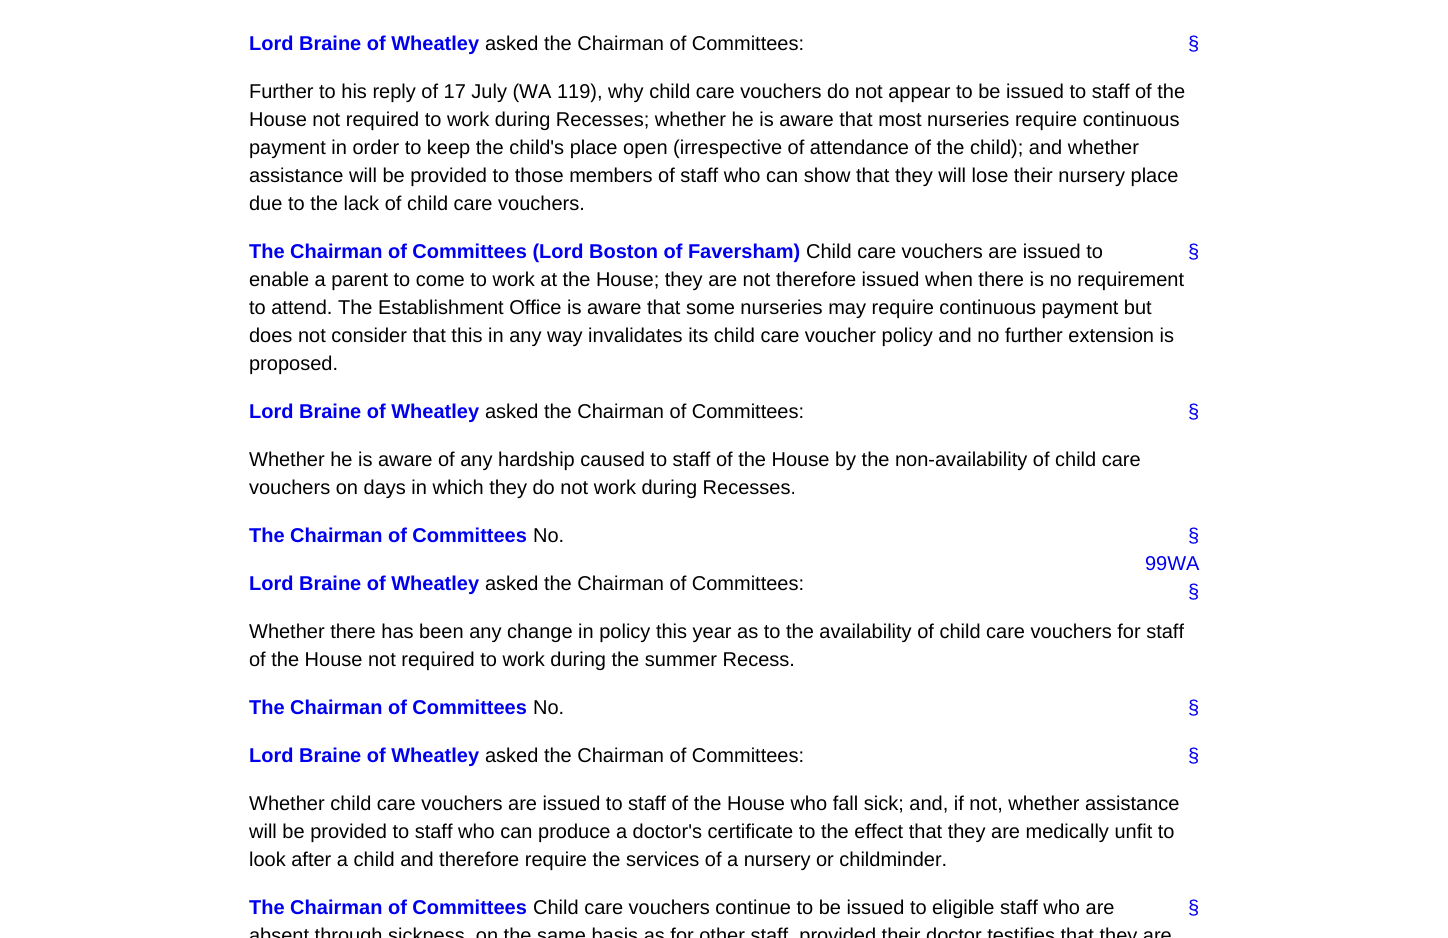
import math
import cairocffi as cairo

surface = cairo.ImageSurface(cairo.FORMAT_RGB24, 1448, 938)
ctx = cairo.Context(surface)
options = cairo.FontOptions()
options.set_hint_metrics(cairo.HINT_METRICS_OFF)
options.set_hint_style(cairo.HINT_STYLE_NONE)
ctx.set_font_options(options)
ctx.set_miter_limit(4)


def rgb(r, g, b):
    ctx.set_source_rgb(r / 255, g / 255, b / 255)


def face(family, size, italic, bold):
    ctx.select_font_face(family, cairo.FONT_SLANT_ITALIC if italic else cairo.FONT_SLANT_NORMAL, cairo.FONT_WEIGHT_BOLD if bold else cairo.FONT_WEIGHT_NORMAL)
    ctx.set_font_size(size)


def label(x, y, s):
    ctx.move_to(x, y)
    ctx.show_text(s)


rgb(255, 255, 255)
ctx.paint()
face('Liberation Sans', 20, 0, 1)
rgb(0, 0, 238)
label(249, 50, 'Lord Braine of Wheatley')
face('Liberation Sans', 20, 0, 0)
rgb(0, 0, 0)
label(485, 50, 'asked the Chairman of Committees:')
rgb(0, 0, 238)
label(1188, 50, '§')
rgb(0, 0, 0)
label(249, 98, 'Further to his reply of 17 July (WA 119), why child care vouchers do not appear to be issued to staff of the')
label(249, 126, 'House not required to work during Recesses; whether he is aware that most nurseries require continuous')
label(249, 154, 'payment in order to keep the child\'s place open (irrespective of attendance of the child); and whether')
label(249, 182, 'assistance will be provided to those members of staff who can show that they will lose their nursery place')
label(249, 210, 'due to the lack of child care vouchers.')
face('Liberation Sans', 20, 0, 1)
rgb(0, 0, 238)
label(249, 258, 'The Chairman of Committees (Lord Boston of Faversham)')
face('Liberation Sans', 20, 0, 0)
rgb(0, 0, 0)
label(806, 258, 'Child care vouchers are issued to')
rgb(0, 0, 238)
label(1188, 258, '§')
rgb(0, 0, 0)
label(249, 286, 'enable a parent to come to work at the House; they are not therefore issued when there is no requirement')
label(249, 314, 'to attend. The Establishment Office is aware that some nurseries may require continuous payment but')
label(249, 342, 'does not consider that this in any way invalidates its child care voucher policy and no further extension is')
label(249, 370, 'proposed.')
face('Liberation Sans', 20, 0, 1)
rgb(0, 0, 238)
label(249, 418, 'Lord Braine of Wheatley')
face('Liberation Sans', 20, 0, 0)
rgb(0, 0, 0)
label(485, 418, 'asked the Chairman of Committees:')
rgb(0, 0, 238)
label(1188, 418, '§')
rgb(0, 0, 0)
label(249, 466, 'Whether he is aware of any hardship caused to staff of the House by the non-availability of child care')
label(249, 494, 'vouchers on days in which they do not work during Recesses.')
face('Liberation Sans', 20, 0, 1)
rgb(0, 0, 238)
label(249, 542, 'The Chairman of Committees')
face('Liberation Sans', 20, 0, 0)
rgb(0, 0, 0)
label(533, 542, 'No.')
rgb(0, 0, 238)
label(1188, 542, '§')
label(1145, 570, '99WA')
face('Liberation Sans', 20, 0, 1)
label(249, 590, 'Lord Braine of Wheatley')
face('Liberation Sans', 20, 0, 0)
rgb(0, 0, 0)
label(485, 590, 'asked the Chairman of Committees:')
rgb(0, 0, 238)
label(1188, 598, '§')
rgb(0, 0, 0)
label(249, 638, 'Whether there has been any change in policy this year as to the availability of child care vouchers for staff')
label(249, 666, 'of the House not required to work during the summer Recess.')
face('Liberation Sans', 20, 0, 1)
rgb(0, 0, 238)
label(249, 714, 'The Chairman of Committees')
face('Liberation Sans', 20, 0, 0)
rgb(0, 0, 0)
label(533, 714, 'No.')
rgb(0, 0, 238)
label(1188, 714, '§')
face('Liberation Sans', 20, 0, 1)
label(249, 762, 'Lord Braine of Wheatley')
face('Liberation Sans', 20, 0, 0)
rgb(0, 0, 0)
label(485, 762, 'asked the Chairman of Committees:')
rgb(0, 0, 238)
label(1188, 762, '§')
rgb(0, 0, 0)
label(249, 810, 'Whether child care vouchers are issued to staff of the House who fall sick; and, if not, whether assistance')
label(249, 838, 'will be provided to staff who can produce a doctor\'s certificate to the effect that they are medically unfit to')
label(249, 866, 'look after a child and therefore require the services of a nursery or childminder.')
face('Liberation Sans', 20, 0, 1)
rgb(0, 0, 238)
label(249, 914, 'The Chairman of Committees')
face('Liberation Sans', 20, 0, 0)
rgb(0, 0, 0)
label(533, 914, 'Child care vouchers continue to be issued to eligible staff who are')
rgb(0, 0, 238)
label(1188, 914, '§')
rgb(0, 0, 0)
label(249, 942, 'absent through sickness, on the same basis as for other staff, provided their doctor testifies that they are')
surface.write_to_png('render.png')
